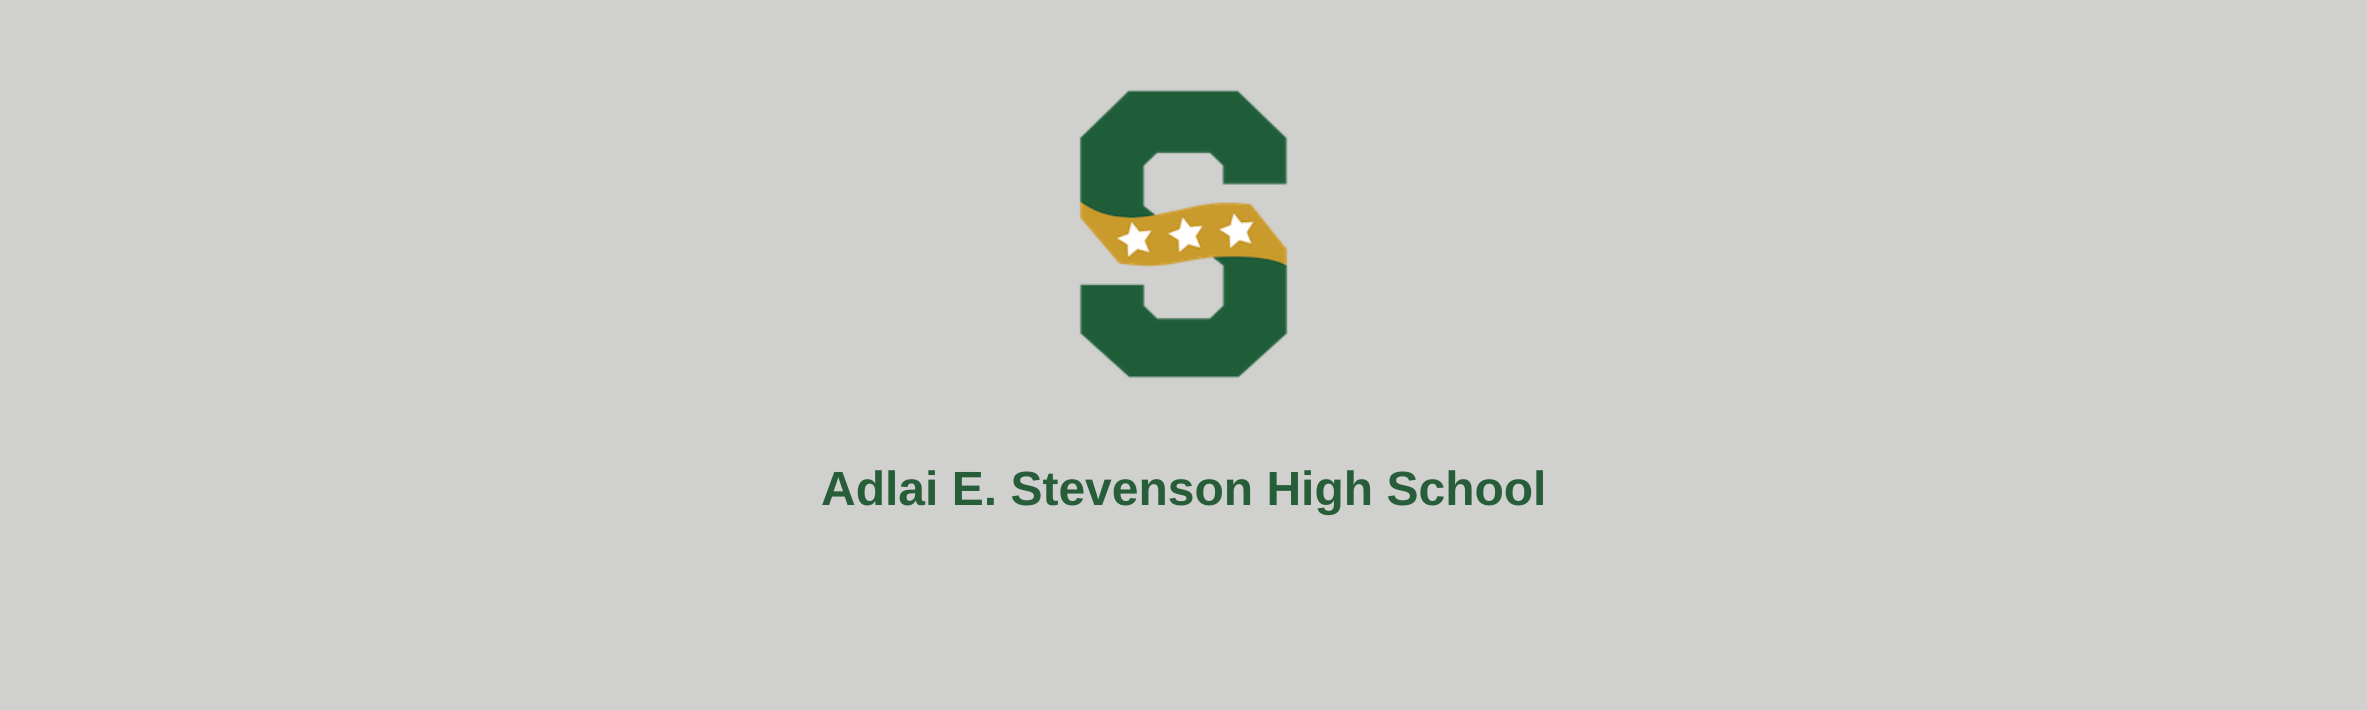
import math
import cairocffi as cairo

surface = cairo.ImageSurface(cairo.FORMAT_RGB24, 2367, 710)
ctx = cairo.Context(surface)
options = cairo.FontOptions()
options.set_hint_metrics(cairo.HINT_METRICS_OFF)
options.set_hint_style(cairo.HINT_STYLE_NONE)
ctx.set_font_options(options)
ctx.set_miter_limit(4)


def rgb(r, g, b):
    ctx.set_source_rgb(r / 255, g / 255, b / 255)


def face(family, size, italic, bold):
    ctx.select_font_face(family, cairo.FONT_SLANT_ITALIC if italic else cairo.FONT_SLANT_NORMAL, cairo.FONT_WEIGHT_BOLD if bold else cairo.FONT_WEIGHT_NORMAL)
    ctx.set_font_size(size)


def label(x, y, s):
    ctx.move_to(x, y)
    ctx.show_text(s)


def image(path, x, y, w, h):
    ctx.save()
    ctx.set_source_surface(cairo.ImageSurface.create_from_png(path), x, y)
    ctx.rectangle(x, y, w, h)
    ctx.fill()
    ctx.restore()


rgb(208, 208, 206)
ctx.paint()
image('image0.png', 1079, 89, 209, 290)
face('Liberation Sans', 48, 0, 1)
rgb(39, 93, 56)
label(821, 505, 'Adlai E. Stevenson High School')
surface.write_to_png('render.png')
